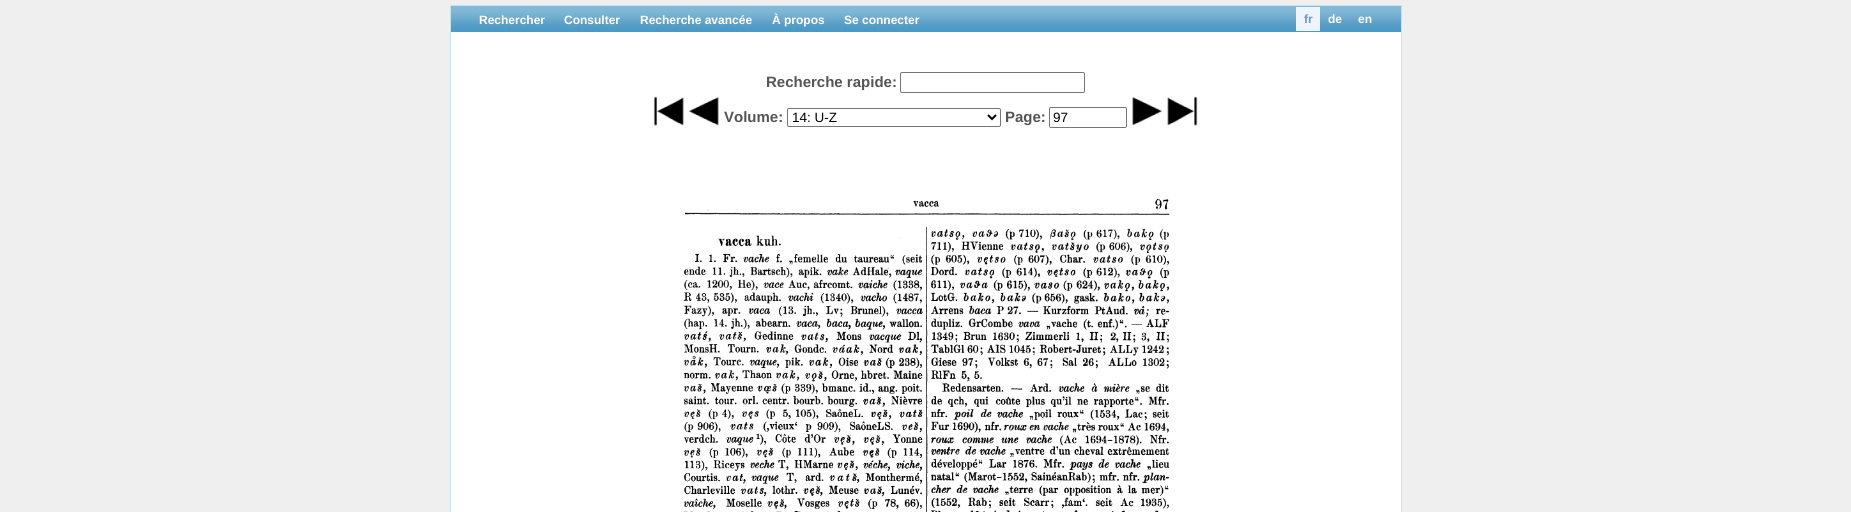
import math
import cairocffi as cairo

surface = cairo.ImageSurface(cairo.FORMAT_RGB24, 1851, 512)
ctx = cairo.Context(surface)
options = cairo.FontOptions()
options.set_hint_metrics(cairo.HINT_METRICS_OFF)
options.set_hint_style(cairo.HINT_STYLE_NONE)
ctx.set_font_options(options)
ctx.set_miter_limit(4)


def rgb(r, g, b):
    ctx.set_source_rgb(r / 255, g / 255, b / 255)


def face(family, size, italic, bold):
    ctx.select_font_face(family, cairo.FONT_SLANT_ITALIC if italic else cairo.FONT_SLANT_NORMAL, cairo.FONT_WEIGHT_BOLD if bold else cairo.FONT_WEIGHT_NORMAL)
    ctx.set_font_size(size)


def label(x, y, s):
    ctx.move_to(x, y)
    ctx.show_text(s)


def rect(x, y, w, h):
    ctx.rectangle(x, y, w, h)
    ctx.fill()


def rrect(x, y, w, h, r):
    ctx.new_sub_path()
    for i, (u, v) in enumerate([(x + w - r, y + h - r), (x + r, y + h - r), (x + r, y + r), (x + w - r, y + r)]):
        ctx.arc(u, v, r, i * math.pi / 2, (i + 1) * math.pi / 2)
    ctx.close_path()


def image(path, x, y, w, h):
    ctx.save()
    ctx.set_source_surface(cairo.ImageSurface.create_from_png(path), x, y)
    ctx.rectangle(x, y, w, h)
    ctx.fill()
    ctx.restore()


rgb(239, 239, 239)
ctx.paint()
rgb(255, 255, 255)
rect(451, 32, 950, 480)
ctx.rectangle(450.5, 5.5, 951, 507)
rgb(201, 224, 237)
ctx.set_line_width(1)
ctx.stroke()
image('image0.png', 451, 6, 950, 26)
face('Liberation Sans', 12, 0, 1)
rgb(255, 255, 255)
label(479, 24, 'Rechercher')
label(564, 24, 'Consulter')
label(640, 24, 'Recherche avancée')
label(772, 24, 'À propos')
label(844, 24, 'Se connecter')
rgb(239, 244, 250)
rect(1296, 7, 24, 24)
rgb(99, 153, 205)
label(1304, 23, 'fr')
rgb(255, 255, 255)
label(1328, 23, 'de')
label(1358, 23, 'en')
face('Liberation Sans', 15, 0, 1)
rgb(85, 85, 85)
label(766, 87, 'Recherche rapide:')
rrect(900.5, 72.5, 184, 20, 1.5)
rgb(118, 118, 118)
ctx.stroke()
image('image1.png', 653, 96, 31, 30)
image('image2.png', 688, 97, 31, 29)
rgb(85, 85, 85)
label(724, 122, 'Volume:')
rrect(787.5, 108.5, 213, 18, 1.5)
rgb(118, 118, 118)
ctx.stroke()
ctx.new_path()
ctx.move_to(988, 115)
ctx.line_to(992, 119)
ctx.line_to(996, 115)
rgb(0, 0, 0)
ctx.set_line_width(2)
ctx.stroke()
face('Liberation Sans', 13.5, 0, 0)
label(792, 122, '14: U-Z')
face('Liberation Sans', 15, 0, 1)
rgb(85, 85, 85)
label(1005, 122, 'Page:')
rrect(1049.5, 107.5, 77, 20, 1.5)
rgb(118, 118, 118)
ctx.set_line_width(1)
ctx.stroke()
face('Liberation Sans', 13.5, 0, 0)
rgb(0, 0, 0)
label(1053, 122, '97')
image('image3.png', 1132, 97, 30, 29)
image('image4.png', 1167, 96, 31, 30)
image('image5.png', 683, 199, 487, 313)
surface.write_to_png('render.png')
